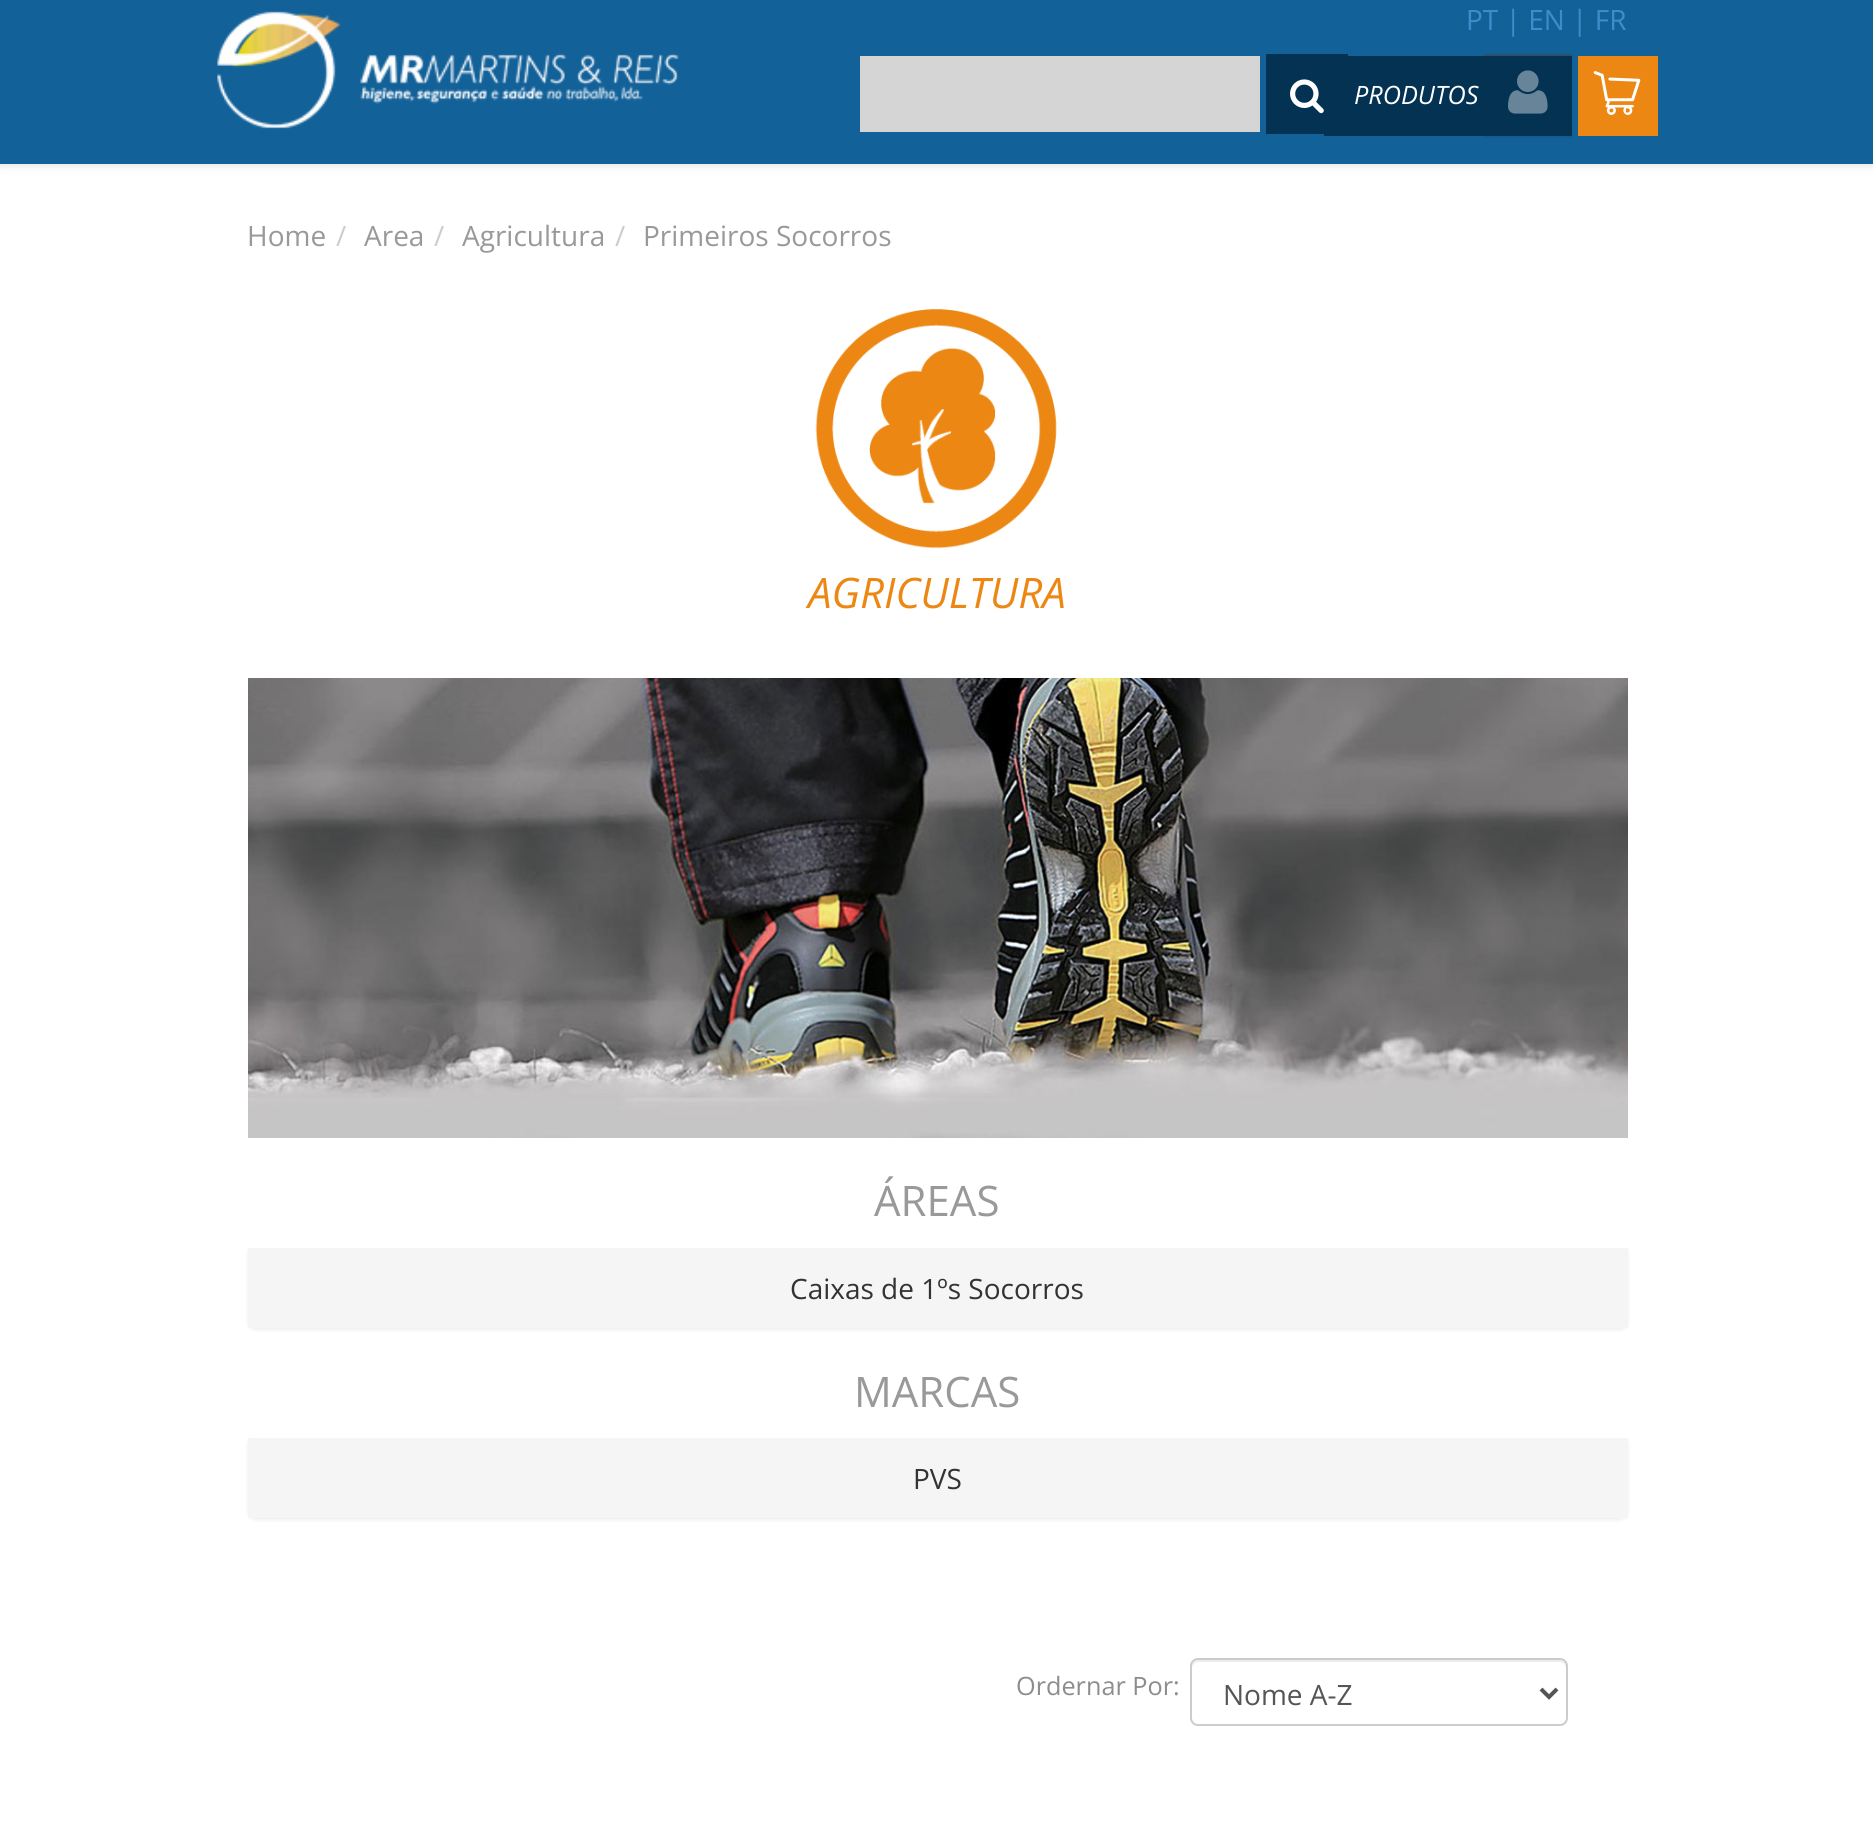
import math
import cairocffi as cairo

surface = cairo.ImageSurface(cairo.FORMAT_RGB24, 1873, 1826)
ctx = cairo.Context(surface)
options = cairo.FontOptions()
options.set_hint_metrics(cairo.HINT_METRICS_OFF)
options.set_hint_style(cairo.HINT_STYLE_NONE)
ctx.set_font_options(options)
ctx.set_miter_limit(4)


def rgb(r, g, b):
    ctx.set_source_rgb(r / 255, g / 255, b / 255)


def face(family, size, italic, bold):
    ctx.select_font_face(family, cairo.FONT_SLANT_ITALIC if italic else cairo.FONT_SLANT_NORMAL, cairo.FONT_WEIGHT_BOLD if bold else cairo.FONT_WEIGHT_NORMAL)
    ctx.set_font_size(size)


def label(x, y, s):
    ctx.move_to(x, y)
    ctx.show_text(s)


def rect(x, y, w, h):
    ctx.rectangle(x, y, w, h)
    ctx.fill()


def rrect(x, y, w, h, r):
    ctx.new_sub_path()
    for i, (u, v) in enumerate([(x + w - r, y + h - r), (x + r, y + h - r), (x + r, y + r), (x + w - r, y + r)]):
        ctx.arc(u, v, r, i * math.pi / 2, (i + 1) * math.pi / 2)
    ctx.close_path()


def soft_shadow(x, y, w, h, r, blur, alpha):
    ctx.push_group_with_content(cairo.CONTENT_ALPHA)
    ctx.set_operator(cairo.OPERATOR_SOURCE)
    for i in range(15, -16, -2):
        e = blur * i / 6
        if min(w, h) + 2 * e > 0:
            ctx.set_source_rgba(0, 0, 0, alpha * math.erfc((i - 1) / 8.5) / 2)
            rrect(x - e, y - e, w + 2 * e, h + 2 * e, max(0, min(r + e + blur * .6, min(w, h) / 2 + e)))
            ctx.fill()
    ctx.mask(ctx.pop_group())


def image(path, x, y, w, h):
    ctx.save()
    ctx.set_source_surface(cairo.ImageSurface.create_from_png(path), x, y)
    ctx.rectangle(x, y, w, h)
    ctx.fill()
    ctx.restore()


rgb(255, 255, 255)
ctx.paint()
rgb(51, 51, 51)
soft_shadow(0, 0, 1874, 164, 0, 5, 0.2)
rgb(19, 97, 153)
rect(0, 0, 1873, 164)
image('image0.png', 217, 11, 462, 118)
face('Open Sans', 28, 0, 0)
rgb(66, 139, 202)
label(1466, 30, 'PT | EN | FR')
rgb(213, 213, 213)
rect(860, 56, 400, 76)
rgb(3, 50, 83)
rect(1266, 54, 82, 80)
image('image1.png', 1290, 79, 34, 35)
rect(1324, 56, 160, 80)
face('Open Sans', 25.25, 1, 0)
rgb(255, 255, 255)
label(1354, 104, 'PRODUTOS')
rgb(0, 0, 0)
soft_shadow(1484, 56, 88, 82, 0, 1, 0.07)
rgb(3, 50, 83)
rect(1484, 56, 88, 80)
rgb(41, 81, 109)
rect(1484, 54, 88, 2)
image('image2.png', 1508, 70, 40, 44)
rgb(237, 135, 19)
rect(1578, 56, 80, 80)
image('image3.png', 1593, 71, 48, 44)
face('Open Sans', 28, 0, 0)
rgb(153, 153, 153)
label(247, 246, 'Home')
rgb(204, 204, 204)
label(336, 246, '/')
rgb(153, 153, 153)
label(364, 246, 'Area')
rgb(204, 204, 204)
label(434, 246, '/')
rgb(153, 153, 153)
label(462, 246, 'Agricultura')
rgb(204, 204, 204)
label(615, 246, '/')
rgb(153, 153, 153)
label(643, 246, 'Primeiros Socorros')
image('image4.png', 815, 309, 242, 240)
face('Open Sans', 42, 1, 0)
rgb(237, 135, 19)
label(808, 608, 'AGRICULTURA')
image('image5.png', 248, 678, 1380, 460)
face('Open Sans', 42, 0, 0)
rgb(153, 153, 153)
label(874, 1216, 'ÁREAS')
rgb(0, 0, 0)
soft_shadow(248, 1246, 1380, 84, 8, 2, 0.07)
rgb(245, 245, 245)
rect(248, 1248, 1380, 80)
rgb(255, 255, 255)
rect(248, 1244, 1380, 4)
face('Open Sans', 28, 0, 0)
rgb(51, 51, 51)
label(790, 1299, 'Caixas de 1ºs Socorros')
face('Open Sans', 42, 0, 0)
rgb(153, 153, 153)
label(854, 1407, 'MARCAS')
rgb(0, 0, 0)
soft_shadow(248, 1436, 1380, 84, 8, 2, 0.07)
rgb(245, 245, 245)
rect(248, 1438, 1380, 80)
rgb(255, 255, 255)
rect(248, 1434, 1380, 4)
face('Open Sans', 28, 0, 0)
rgb(51, 51, 51)
label(913, 1489, 'PVS')
face('Open Sans', 25.25, 0, 0)
rgb(141, 141, 141)
label(1016, 1695, 'Ordernar Por:')
rgb(236, 236, 236)
ctx.new_path()
ctx.move_to(1198, 1662)
ctx.line_to(1560, 1662)
ctx.curve_to(1563, 1662, 1566, 1665, 1566, 1668)
ctx.line_to(1566, 1666)
ctx.curve_to(1566, 1663, 1563, 1660, 1560, 1660)
ctx.line_to(1198, 1660)
ctx.curve_to(1195, 1660, 1192, 1663, 1192, 1666)
ctx.line_to(1192, 1668)
ctx.curve_to(1192, 1665, 1195, 1662, 1198, 1662)
ctx.close_path()
ctx.fill()
rrect(1191, 1659, 376, 66, 7)
rgb(204, 204, 204)
ctx.stroke()
ctx.new_path()
ctx.move_to(1541, 1689)
ctx.line_to(1549, 1697)
ctx.line_to(1557, 1689)
rgb(85, 85, 85)
ctx.set_line_width(4)
ctx.stroke()
face('Open Sans', 28, 0, 0)
label(1223, 1705, 'Nome A-Z')
surface.write_to_png('render.png')
